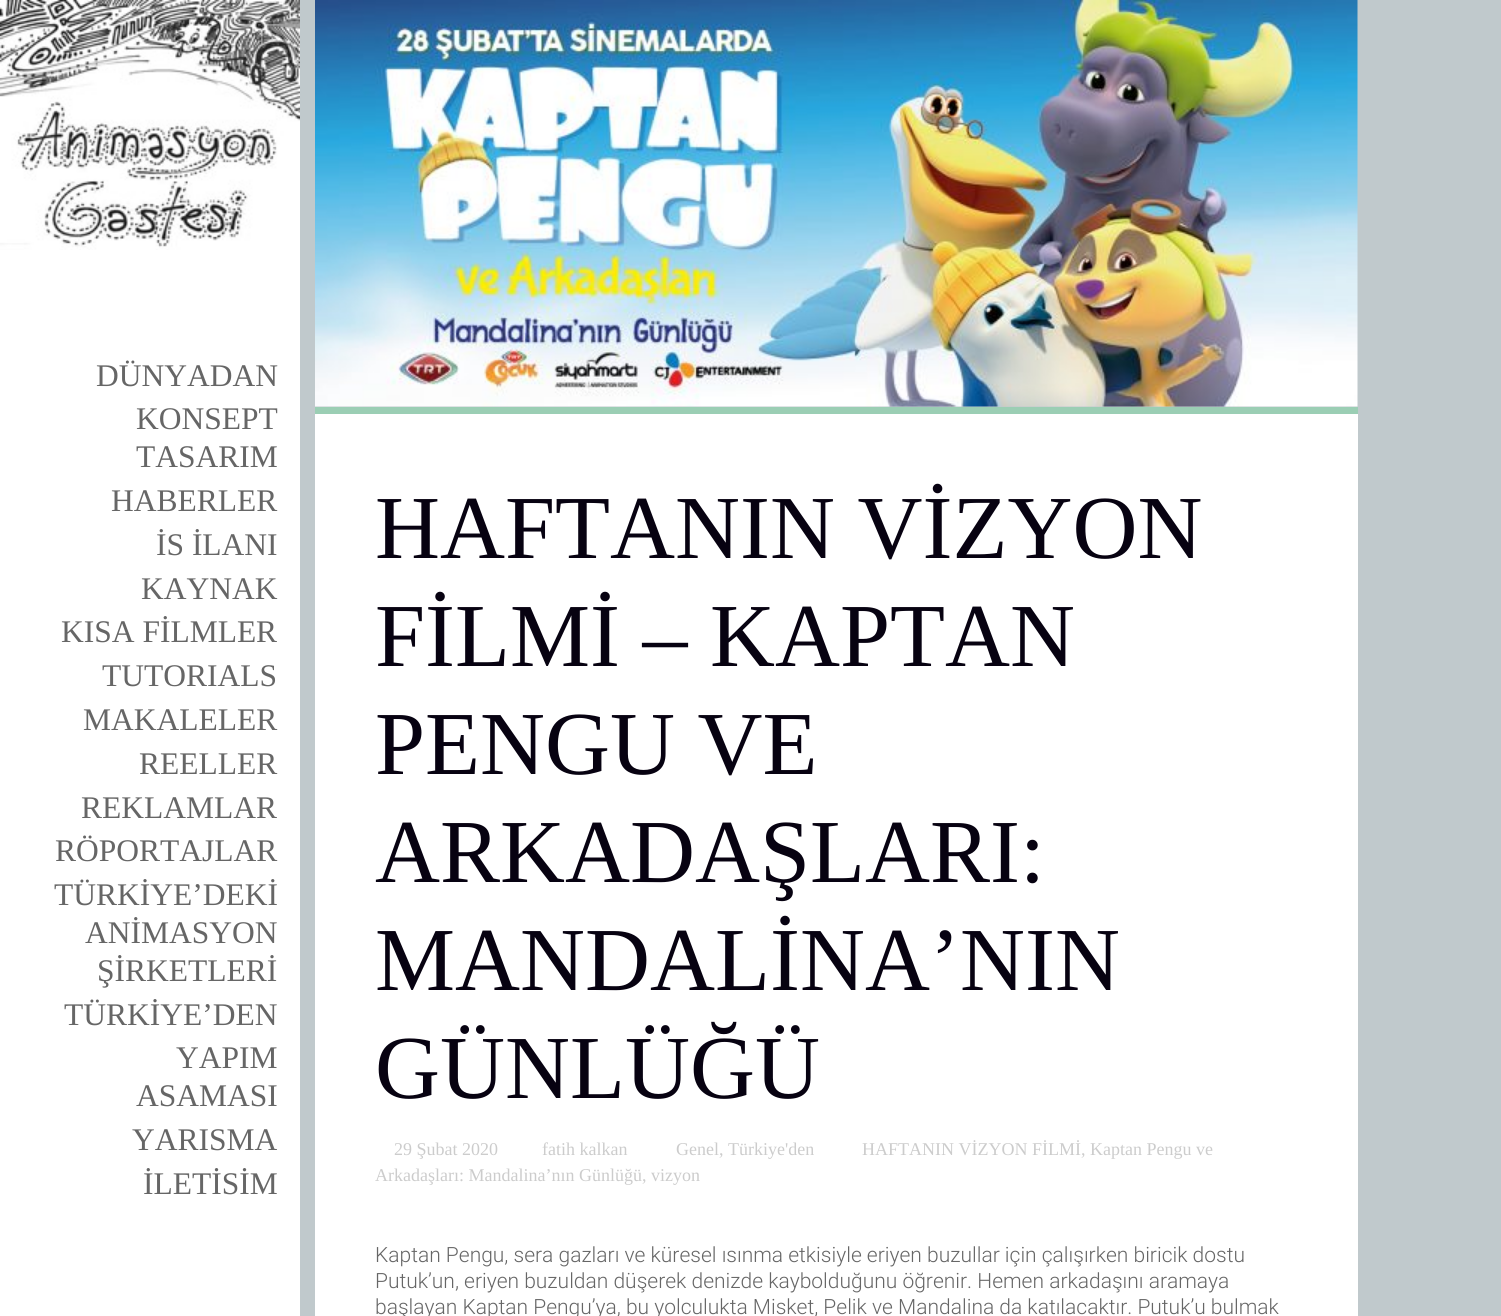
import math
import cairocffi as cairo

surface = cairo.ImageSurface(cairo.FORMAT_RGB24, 1501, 1316)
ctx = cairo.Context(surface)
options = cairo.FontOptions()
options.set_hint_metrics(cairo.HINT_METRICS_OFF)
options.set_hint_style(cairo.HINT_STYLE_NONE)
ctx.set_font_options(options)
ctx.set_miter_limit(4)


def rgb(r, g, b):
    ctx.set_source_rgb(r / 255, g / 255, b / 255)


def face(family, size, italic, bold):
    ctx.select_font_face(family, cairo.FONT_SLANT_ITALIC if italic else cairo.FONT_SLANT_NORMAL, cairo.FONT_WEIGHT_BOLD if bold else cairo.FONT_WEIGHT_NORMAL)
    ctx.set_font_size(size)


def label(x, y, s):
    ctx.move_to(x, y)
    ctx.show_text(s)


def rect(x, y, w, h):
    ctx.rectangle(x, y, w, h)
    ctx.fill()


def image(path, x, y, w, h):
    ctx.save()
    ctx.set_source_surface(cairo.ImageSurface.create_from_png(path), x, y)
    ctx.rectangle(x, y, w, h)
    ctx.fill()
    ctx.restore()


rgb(192, 201, 204)
ctx.paint()
rgb(255, 255, 255)
rect(0, 250, 300, 1066)
image('image0.png', 0, 0, 300, 250)
face('Liberation Serif', 31.5, 0, 0)
rgb(102, 102, 102)
label(96, 386, 'DÜNYADAN')
label(136, 429, 'KONSEPT')
label(136, 467, 'TASARIM')
label(111, 511, 'HABERLER')
label(156, 555, 'İS İLANI')
label(141, 599, 'KAYNAK')
label(61, 642, 'KISA FİLMLER')
label(102, 686, 'TUTORIALS')
label(83, 730, 'MAKALELER')
label(139, 774, 'REELLER')
label(81, 818, 'REKLAMLAR')
label(55, 861, 'RÖPORTAJLAR')
label(54, 905, 'TÜRKİYE’DEKİ')
label(85, 943, 'ANİMASYON')
label(97, 981, 'ŞİRKETLERİ')
label(64, 1025, 'TÜRKİYE’DEN')
label(176, 1068, 'YAPIM')
label(136, 1106, 'ASAMASI')
label(132, 1150, 'YARISMA')
label(143, 1194, 'İLETİSİM')
image('image1.png', 315, 0, 1043, 407)
rgb(155, 206, 180)
rect(315, 407, 1043, 7)
rgb(255, 255, 255)
rect(315, 414, 1043, 902)
face('Liberation Serif', 90, 0, 0)
rgb(7, 2, 17)
label(375, 558, 'HAFTANIN VİZYON')
label(375, 666, 'FİLMİ – KAPTAN')
label(375, 774, 'PENGU VE')
label(375, 882, 'ARKADAŞLARI:')
label(375, 990, 'MANDALİNA’NIN')
label(375, 1098, 'GÜNLÜĞÜ')
face('Liberation Serif', 18, 0, 0)
rgb(204, 204, 204)
label(394, 1155, '29 Şubat 2020')
label(542, 1155, 'fatih kalkan')
label(676, 1155, 'Genel, Türkiye\'den')
label(862, 1155, 'HAFTANIN VİZYON FİLMİ, Kaptan Pengu ve')
label(375, 1181, 'Arkadaşları: Mandalina’nın Günlüğü, vizyon')
face('Roboto Light', 21, 0, 0)
rgb(102, 102, 102)
label(375, 1262, 'Kaptan Pengu, sera gazları ve küresel ısınma etkisiyle eriyen buzullar için çalışırken biricik dostu')
label(375, 1288, 'Putuk’un, eriyen buzuldan düşerek denizde kaybolduğunu öğrenir. Hemen arkadaşını aramaya')
label(375, 1314, 'başlayan Kaptan Pengu’ya, bu yolculukta Misket, Pelik ve Mandalina da katılacaktır. Putuk’u bulmak')
surface.write_to_png('render.png')
